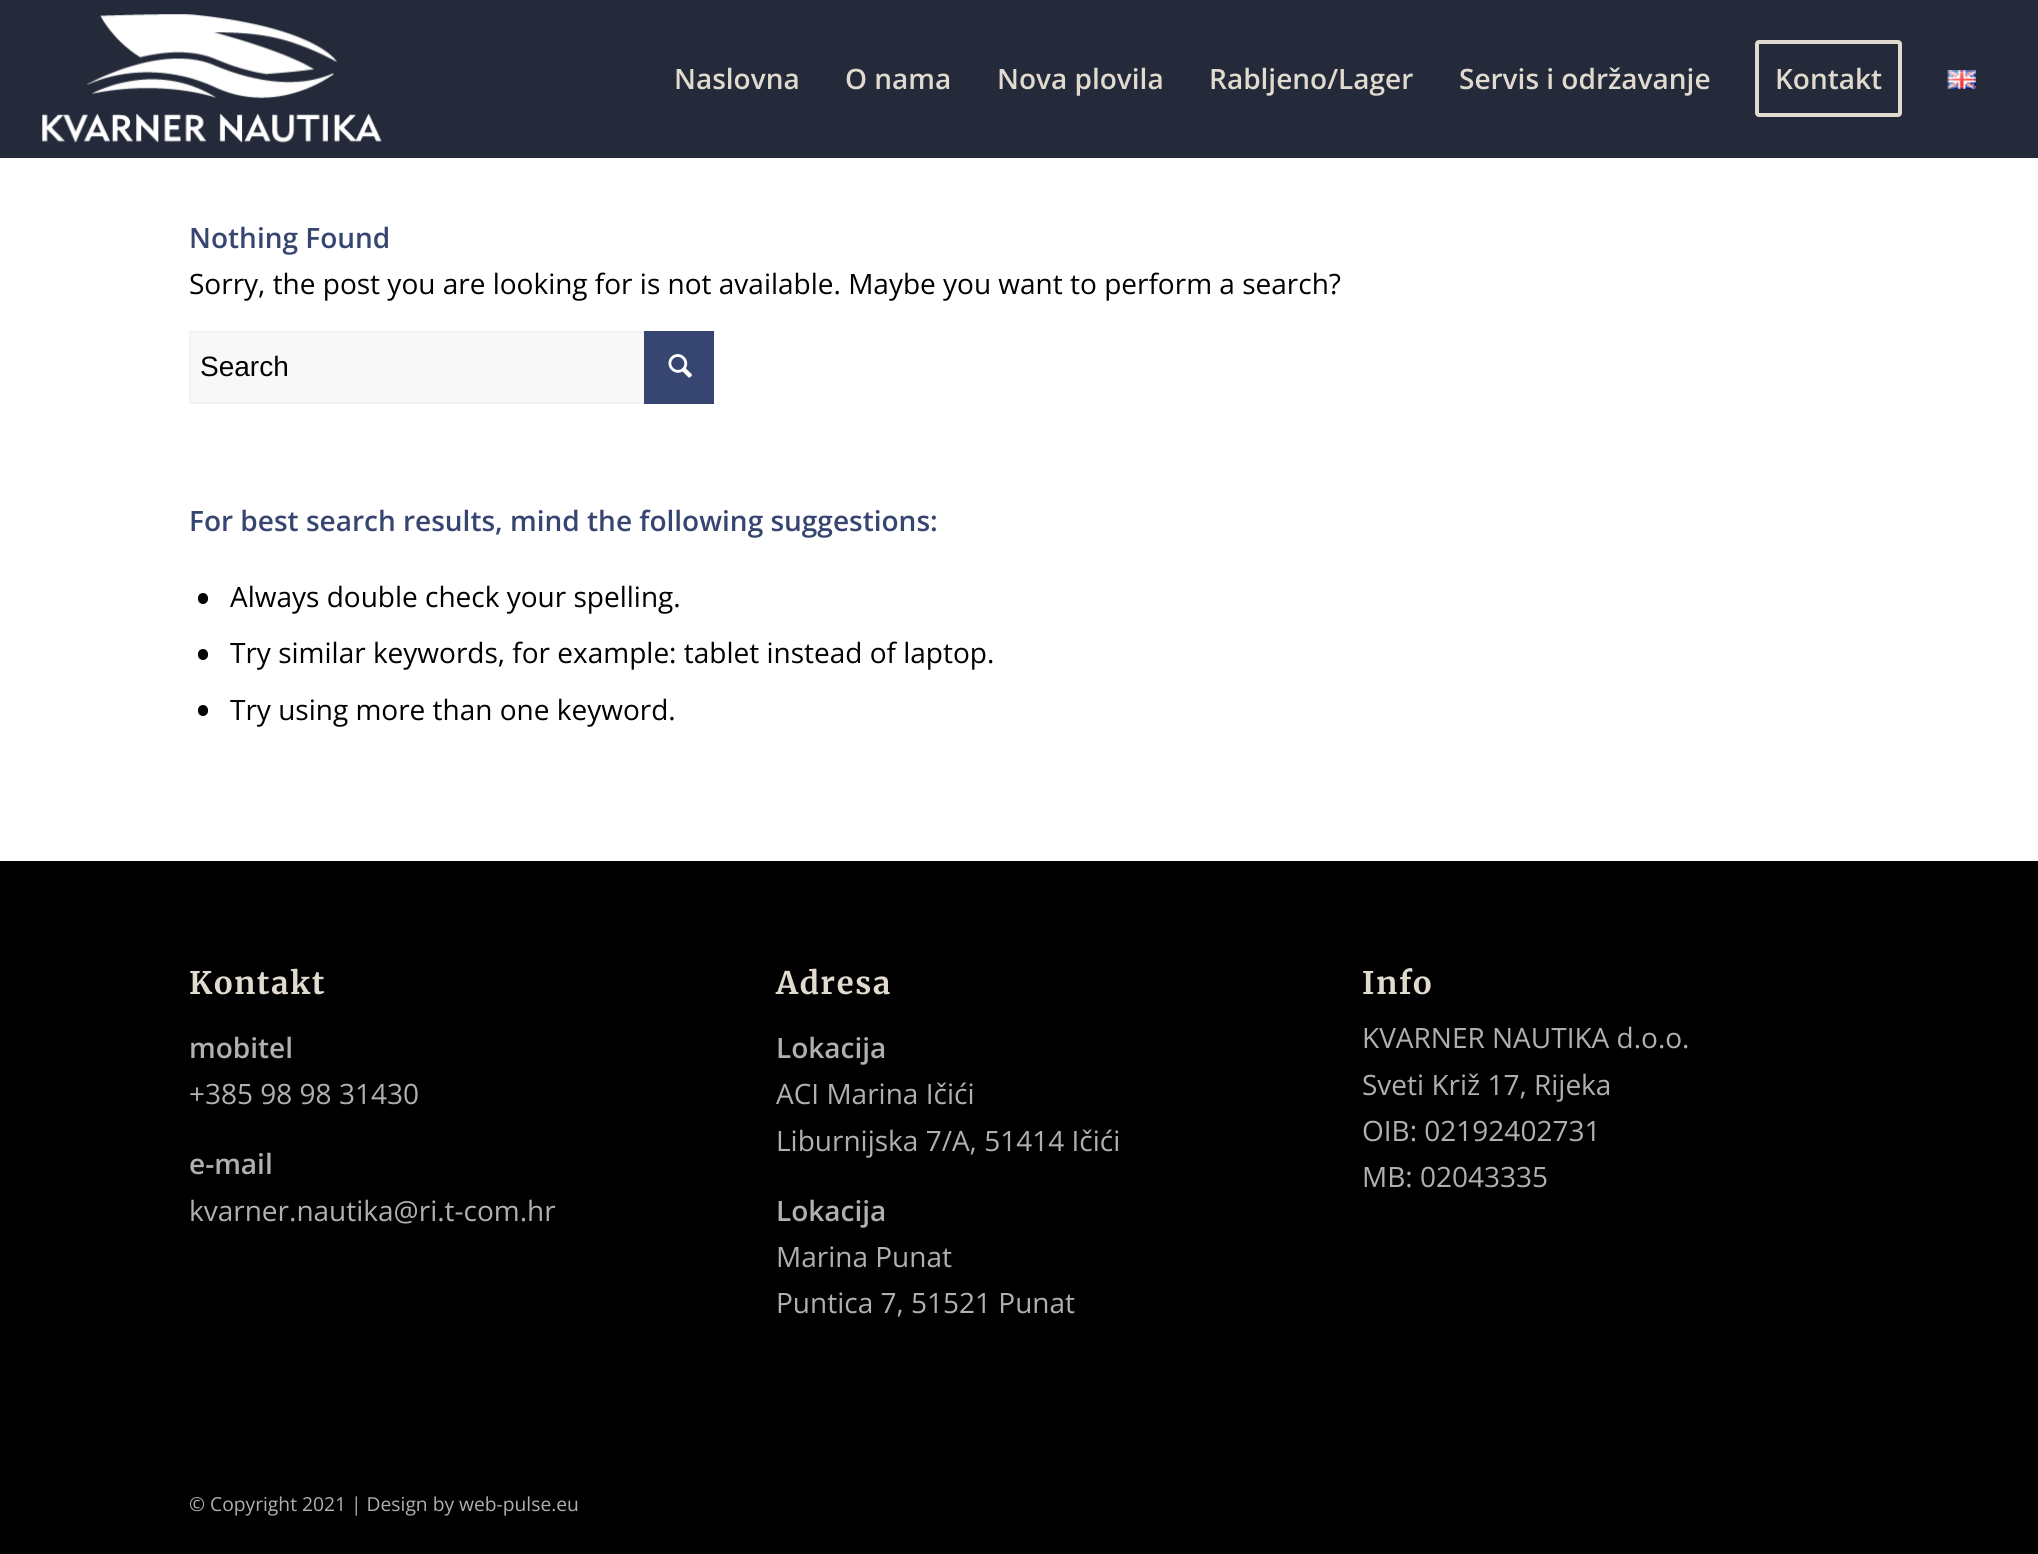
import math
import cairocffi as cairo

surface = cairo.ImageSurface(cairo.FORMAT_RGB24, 2038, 1554)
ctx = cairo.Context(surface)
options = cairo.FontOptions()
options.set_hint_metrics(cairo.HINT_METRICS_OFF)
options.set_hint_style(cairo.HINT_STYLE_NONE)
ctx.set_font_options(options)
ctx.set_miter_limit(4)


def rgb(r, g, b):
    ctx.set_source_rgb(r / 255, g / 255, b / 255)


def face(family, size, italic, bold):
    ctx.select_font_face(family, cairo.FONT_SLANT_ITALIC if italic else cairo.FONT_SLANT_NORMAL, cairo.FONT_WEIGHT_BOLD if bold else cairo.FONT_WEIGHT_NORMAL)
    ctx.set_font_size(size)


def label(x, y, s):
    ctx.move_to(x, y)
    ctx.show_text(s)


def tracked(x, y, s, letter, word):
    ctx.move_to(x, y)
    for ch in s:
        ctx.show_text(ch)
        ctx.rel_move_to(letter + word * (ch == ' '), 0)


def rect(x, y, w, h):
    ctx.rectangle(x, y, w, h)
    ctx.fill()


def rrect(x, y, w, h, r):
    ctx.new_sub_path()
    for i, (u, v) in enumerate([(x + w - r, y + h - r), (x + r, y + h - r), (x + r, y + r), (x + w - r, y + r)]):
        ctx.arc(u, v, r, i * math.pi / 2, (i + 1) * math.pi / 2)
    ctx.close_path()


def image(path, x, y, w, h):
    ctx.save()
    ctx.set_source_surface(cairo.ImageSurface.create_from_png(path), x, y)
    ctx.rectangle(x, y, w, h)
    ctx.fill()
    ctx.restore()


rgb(255, 255, 255)
ctx.paint()
rgb(36, 42, 58)
rect(0, 0, 2038, 158)
image('image0.png', 42, 14, 340, 129)
face('Open Sans SemiBold', 28, 0, 0)
rgb(225, 219, 207)
label(674, 89, 'Naslovna')
label(845, 89, 'O nama')
label(997, 89, 'Nova plovila')
label(1209, 89, 'Rabljeno/Lager')
label(1459, 89, 'Servis i održavanje')
rrect(1757, 42, 143, 73, 2)
ctx.set_line_width(4)
ctx.stroke()
label(1775, 89, 'Kontakt')
image('image1.png', 1947, 70, 29, 19)
rgb(54, 70, 112)
label(189, 248, 'Nothing Found')
face('Open Sans', 28, 0, 0)
rgb(0, 0, 0)
label(189, 294, 'Sorry, the post you are looking for is not available. Maybe you want to perform a search?')
rgb(248, 248, 248)
rect(191, 333, 453, 69)
ctx.rectangle(190, 332, 523, 71)
rgb(242, 242, 242)
ctx.set_line_width(2)
ctx.stroke()
face('Liberation Sans', 28, 0, 0)
rgb(0, 0, 0)
label(200, 376, 'Search')
rgb(54, 70, 112)
rect(644, 331, 70, 73)
image('image2.png', 668, 354, 24, 24)
face('Open Sans SemiBold', 28, 0, 0)
label(189, 531, 'For best search results, mind the following suggestions:')
rgb(0, 0, 0)
rrect(198, 593, 10, 11, 5)
ctx.fill()
face('Open Sans', 28, 0, 0)
label(230, 607, 'Always double check your spelling.')
rrect(198, 649, 10, 11, 5)
ctx.fill()
label(230, 663, 'Try similar keywords, for example: tablet instead of laptop.')
rrect(198, 705, 10, 11, 5)
ctx.fill()
label(230, 720, 'Try using more than one keyword.')
rect(0, 861, 2038, 693)
face('Merriweather', 31, 0, 1)
rgb(225, 219, 207)
tracked(189, 994, 'Kontakt', 1.75, 0)
face('Open Sans SemiBold', 28, 0, 0)
rgb(176, 176, 176)
label(189, 1058, 'mobitel')
face('Open Sans', 28, 0, 0)
label(189, 1104, '+385 98 98 31430')
face('Open Sans SemiBold', 28, 0, 0)
label(189, 1174, 'e-mail')
face('Open Sans', 28, 0, 0)
label(189, 1221, 'kvarner.nautika@ri.t-com.hr')
face('Merriweather', 31, 0, 1)
rgb(225, 219, 207)
tracked(776, 994, 'Adresa', 1.75, 0)
face('Open Sans SemiBold', 28, 0, 0)
rgb(176, 176, 176)
label(776, 1058, 'Lokacija')
face('Open Sans', 28, 0, 0)
label(776, 1104, 'ACI Marina Ičići')
label(776, 1151, 'Liburnijska 7/A, 51414 Ičići')
face('Open Sans SemiBold', 28, 0, 0)
label(776, 1221, 'Lokacija')
face('Open Sans', 28, 0, 0)
label(776, 1267, 'Marina Punat')
label(776, 1313, 'Puntica 7, 51521 Punat')
face('Merriweather', 31, 0, 1)
rgb(225, 219, 207)
tracked(1362, 994, 'Info', 1.75, 0)
face('Open Sans', 28, 0, 0)
rgb(176, 176, 176)
label(1362, 1048, 'KVARNER NAUTIKA d.o.o.')
label(1362, 1095, 'Sveti Križ 17, Rijeka')
label(1362, 1141, 'OIB: 02192402731')
label(1362, 1187, 'MB: 02043335')
face('Open Sans', 19.25, 0, 0)
label(189, 1511, '© Copyright 2021 | Design by web-pulse.eu')
surface.write_to_png('render.png')
